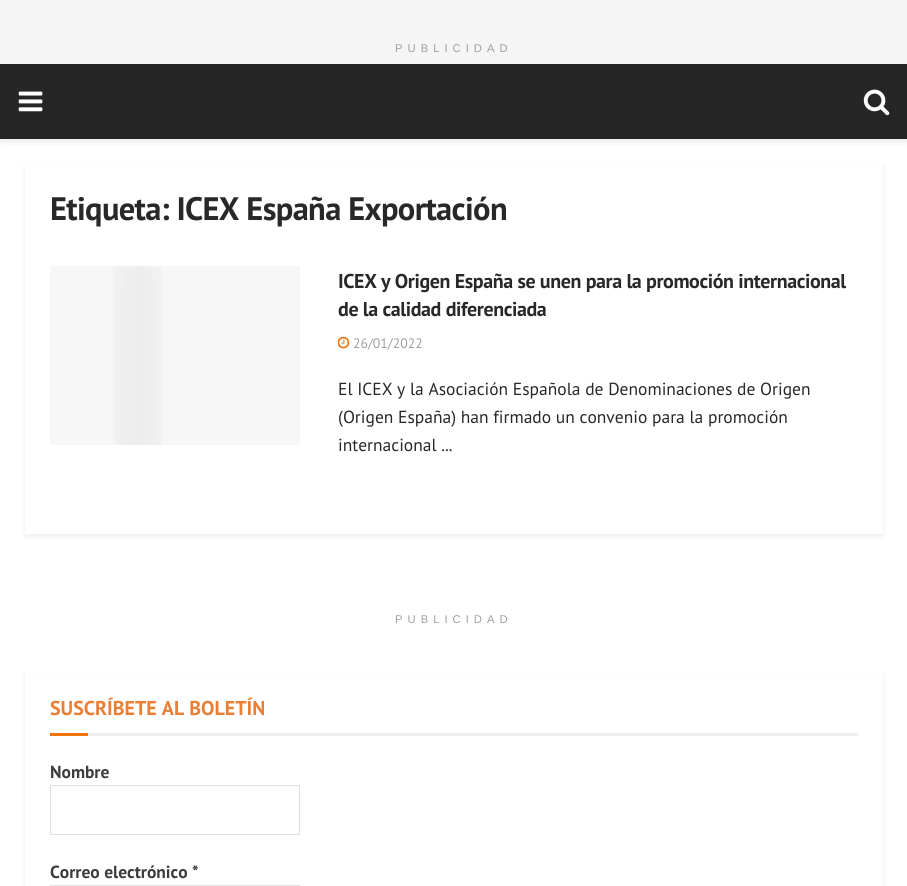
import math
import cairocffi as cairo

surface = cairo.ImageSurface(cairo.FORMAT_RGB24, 907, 886)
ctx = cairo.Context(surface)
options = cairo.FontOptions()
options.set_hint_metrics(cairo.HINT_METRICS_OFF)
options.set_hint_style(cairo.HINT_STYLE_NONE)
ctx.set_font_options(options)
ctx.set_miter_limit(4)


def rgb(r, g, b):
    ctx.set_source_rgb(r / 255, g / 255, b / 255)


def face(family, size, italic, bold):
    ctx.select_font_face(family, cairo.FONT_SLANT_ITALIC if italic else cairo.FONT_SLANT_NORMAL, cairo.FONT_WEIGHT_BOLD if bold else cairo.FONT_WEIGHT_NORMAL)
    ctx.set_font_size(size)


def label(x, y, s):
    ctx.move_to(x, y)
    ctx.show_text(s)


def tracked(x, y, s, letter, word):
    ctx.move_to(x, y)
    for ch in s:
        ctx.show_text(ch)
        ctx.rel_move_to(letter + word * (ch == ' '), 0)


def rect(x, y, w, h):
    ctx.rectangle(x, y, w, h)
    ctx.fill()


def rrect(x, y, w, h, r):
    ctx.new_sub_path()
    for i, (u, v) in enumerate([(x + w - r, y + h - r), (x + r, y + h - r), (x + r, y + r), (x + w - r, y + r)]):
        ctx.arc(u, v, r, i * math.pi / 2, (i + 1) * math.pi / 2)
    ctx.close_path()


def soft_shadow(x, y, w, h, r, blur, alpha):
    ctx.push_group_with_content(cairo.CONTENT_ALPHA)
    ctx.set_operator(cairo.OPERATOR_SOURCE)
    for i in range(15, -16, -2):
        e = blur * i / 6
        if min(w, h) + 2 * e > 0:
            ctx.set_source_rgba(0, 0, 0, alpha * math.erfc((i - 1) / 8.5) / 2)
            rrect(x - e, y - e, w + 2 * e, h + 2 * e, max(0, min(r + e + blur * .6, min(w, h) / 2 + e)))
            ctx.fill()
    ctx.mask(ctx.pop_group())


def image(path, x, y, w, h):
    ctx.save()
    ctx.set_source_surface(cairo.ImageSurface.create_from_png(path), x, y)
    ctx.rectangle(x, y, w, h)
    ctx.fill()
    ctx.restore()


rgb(255, 255, 255)
ctx.paint()
rgb(0, 0, 0)
soft_shadow(0, 66, 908, 75, 0, 4, 0.1)
rgb(245, 245, 245)
rect(0, 0, 907, 64)
face('Liberation Sans', 11.25, 0, 0)
rgb(160, 160, 160)
tracked(395, 52, 'PUBLICIDAD', 5, 0)
rgb(38, 38, 38)
rect(0, 64, 907, 75)
image('image0.png', 18, 91, 25, 21)
image('image1.png', 863, 89, 27, 27)
rgb(0, 0, 0)
soft_shadow(25, 166, 858, 370, 0, 2.5, 0.08)
rgb(255, 255, 255)
rect(25, 164, 858, 370)
face('PT Sans', 32.5, 0, 1)
rgb(40, 40, 40)
tracked(50, 220, 'Etiqueta: ICEX España Exportación', -0.65, 0)
rgb(247, 247, 247)
rect(50, 266, 250, 179)
image('image2.png', 113, 266, 49, 179)
face('PT Sans', 20, 0, 1)
rgb(40, 40, 40)
tracked(338, 288, 'ICEX y Origen España se unen para la promoción internacional', -0.4, 0)
tracked(338, 316, 'de la calidad diferenciada', -0.4, 0)
image('image3.png', 338, 336, 12, 13)
face('PT Sans', 13.75, 0, 0)
rgb(160, 160, 160)
label(353, 348, '26/01/2022')
face('PT Sans', 17.5, 0, 0)
rgb(40, 40, 40)
label(338, 395, 'El ICEX y la Asociación Española de Denominaciones de Origen')
label(338, 423, '(Origen España) han firmado un convenio para la promoción')
label(338, 451, 'internacional ...')
face('Liberation Sans', 11.25, 0, 0)
rgb(160, 160, 160)
tracked(395, 623, 'PUBLICIDAD', 5, 0)
rgb(0, 0, 0)
soft_shadow(25, 675, 858, 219, 0, 2.5, 0.08)
rgb(255, 255, 255)
rect(25, 673, 858, 213)
rgb(238, 238, 238)
rect(88, 733, 770, 3)
face('PT Sans', 20, 0, 1)
rgb(234, 126, 53)
label(50, 715, 'SUSCRÍBETE AL BOLETÍN')
rgb(242, 115, 12)
rect(50, 733, 38, 3)
face('PT Sans', 17.5, 0, 1)
rgb(61, 61, 61)
label(50, 778, 'Nombre')
ctx.rectangle(50.5, 785.5, 249, 49)
rgb(224, 224, 224)
ctx.set_line_width(1)
ctx.stroke()
rgb(61, 61, 61)
label(50, 878, 'Correo electrónico *')
ctx.rectangle(50.5, 885.5, 249, 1)
rgb(224, 224, 224)
ctx.stroke()
surface.write_to_png('render.png')
